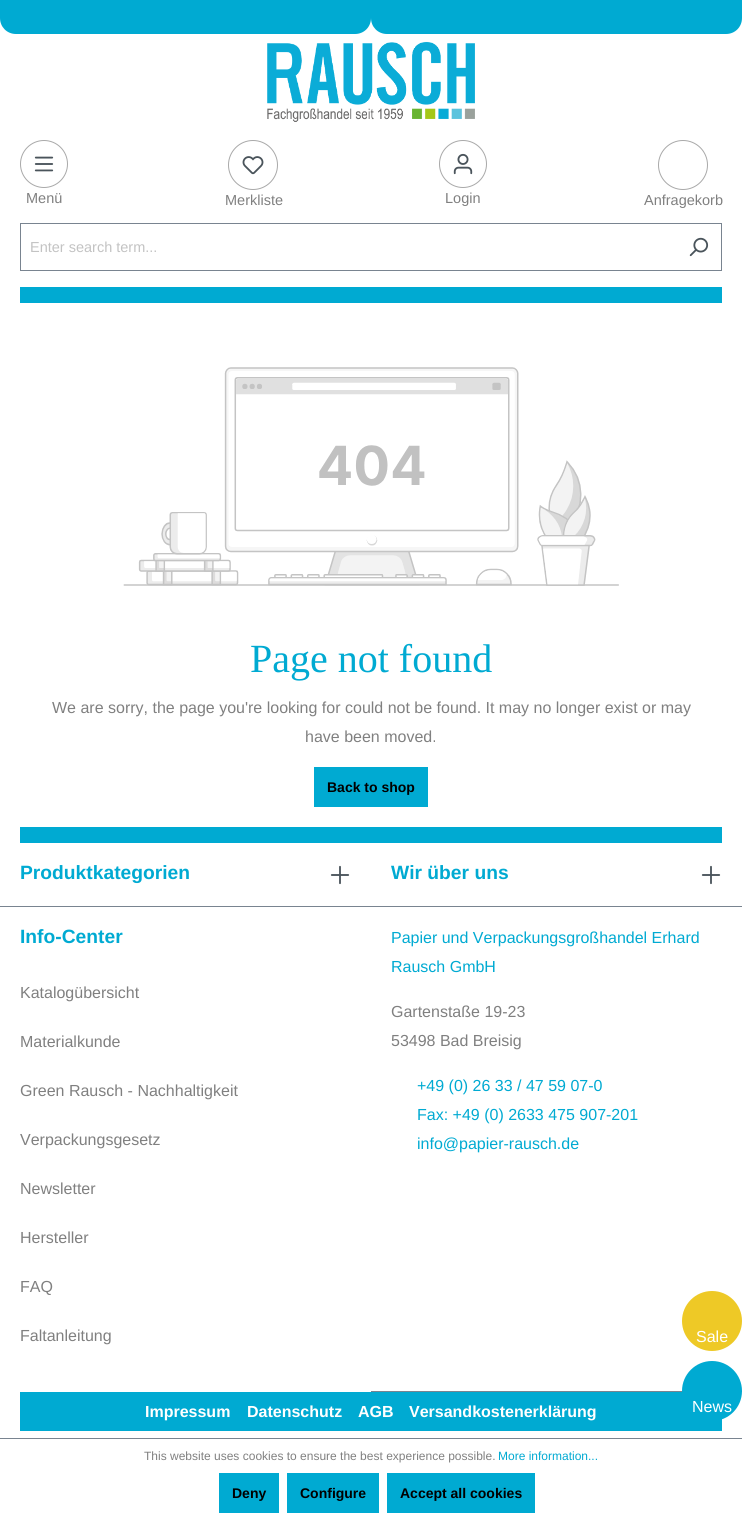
import math
import cairocffi as cairo

surface = cairo.ImageSurface(cairo.FORMAT_RGB24, 742, 1521)
ctx = cairo.Context(surface)
options = cairo.FontOptions()
options.set_hint_metrics(cairo.HINT_METRICS_OFF)
options.set_hint_style(cairo.HINT_STYLE_NONE)
ctx.set_font_options(options)
ctx.set_miter_limit(4)


def rgb(r, g, b):
    ctx.set_source_rgb(r / 255, g / 255, b / 255)


def face(family, size, italic, bold):
    ctx.select_font_face(family, cairo.FONT_SLANT_ITALIC if italic else cairo.FONT_SLANT_NORMAL, cairo.FONT_WEIGHT_BOLD if bold else cairo.FONT_WEIGHT_NORMAL)
    ctx.set_font_size(size)


def label(x, y, s):
    ctx.move_to(x, y)
    ctx.show_text(s)


def rect(x, y, w, h):
    ctx.rectangle(x, y, w, h)
    ctx.fill()


def image(path, x, y, w, h):
    ctx.save()
    ctx.set_source_surface(cairo.ImageSurface.create_from_png(path), x, y)
    ctx.rectangle(x, y, w, h)
    ctx.fill()
    ctx.restore()


rgb(255, 255, 255)
ctx.paint()
rgb(0, 170, 210)
ctx.new_path()
ctx.move_to(0, 0)
ctx.line_to(371, 0)
ctx.line_to(371, 18)
ctx.curve_to(371, 27, 364, 34, 355, 34)
ctx.line_to(16, 34)
ctx.curve_to(7, 34, 0, 27, 0, 18)
ctx.close_path()
ctx.fill()
ctx.new_path()
ctx.move_to(371, 0)
ctx.line_to(742, 0)
ctx.line_to(742, 18)
ctx.curve_to(742, 27, 735, 34, 726, 34)
ctx.line_to(387, 34)
ctx.curve_to(378, 34, 371, 27, 371, 18)
ctx.close_path()
ctx.fill()
image('image0.png', 267, 41, 208, 81)
ctx.arc(44, 164, 23.5, 0, 2 * math.pi)
rgb(169, 169, 169)
ctx.set_line_width(1)
ctx.stroke()
image('image1.png', 34, 156, 20, 16)
face('Liberation Sans', 14.5, 0, 0)
rgb(128, 128, 128)
label(26, 203, 'Menü')
ctx.new_path()
ctx.arc(253, 165, 24.5, 0, 2 * math.pi)
rgb(169, 169, 169)
ctx.stroke()
image('image2.png', 242, 156, 22, 19)
rgb(128, 128, 128)
label(225, 205, 'Merkliste')
ctx.new_path()
ctx.arc(463, 164, 23.5, 0, 2 * math.pi)
rgb(169, 169, 169)
ctx.stroke()
image('image3.png', 453, 153, 20, 22)
rgb(128, 128, 128)
label(445, 203, 'Login')
ctx.new_path()
ctx.arc(683, 165, 24.5, 0, 2 * math.pi)
rgb(169, 169, 169)
ctx.stroke()
rgb(128, 128, 128)
label(644, 205, 'Anfragekorb')
rgb(121, 132, 144)
rect(20, 223, 702, 1)
rect(20, 270, 656, 1)
rect(20, 223, 1, 48)
rgb(195, 195, 195)
label(30, 252, 'Enter search term...')
rgb(121, 132, 144)
rect(721, 223, 1, 48)
rect(675, 270, 47, 1)
image('image4.png', 689, 237, 20, 20)
rgb(0, 170, 210)
rect(20, 287, 702, 16)
image('image5.png', 123, 367, 496, 219)
face('Liberation Serif', 40, 0, 0)
label(250, 672, 'Page not found')
face('Liberation Sans', 16, 0, 0)
rgb(128, 128, 128)
label(52, 713, 'We are sorry, the page you\'re looking for could not be found. It may no longer exist or may')
label(305, 742, 'have been moved.')
rgb(0, 170, 210)
rect(314, 767, 114, 40)
face('Liberation Sans', 14, 0, 1)
rgb(0, 0, 0)
label(327, 792, 'Back to shop')
rgb(238, 201, 38)
ctx.new_path()
ctx.arc(712, 1321, 30, 0, 2 * math.pi)
ctx.fill()
face('Liberation Sans', 16, 0, 0)
rgb(255, 255, 255)
label(696, 1342, 'Sale')
rgb(121, 132, 144)
rect(371, 1391, 371, 1)
rgb(0, 170, 210)
rect(20, 1392, 702, 39)
ctx.new_path()
ctx.arc(712, 1391, 30, 0, 2 * math.pi)
ctx.fill()
rgb(255, 255, 255)
label(692, 1412, 'News')
rgb(0, 170, 210)
rect(20, 827, 702, 16)
rgb(121, 132, 144)
rect(0, 906, 742, 1)
face('Liberation Sans', 19.25, 0, 1)
rgb(0, 170, 210)
label(20, 879, 'Produktkategorien')
image('image6.png', 330, 865, 20, 20)
label(391, 879, 'Wir über uns')
image('image6.png', 701, 865, 20, 20)
label(20, 943, 'Info-Center')
face('Liberation Sans', 16, 0, 0)
rgb(128, 128, 128)
label(20, 998, 'Katalogübersicht')
label(20, 1047, 'Materialkunde')
label(20, 1096, 'Green Rausch - Nachhaltigkeit')
label(20, 1145, 'Verpackungsgesetz')
label(20, 1194, 'Newsletter')
label(20, 1243, 'Hersteller')
label(20, 1292, 'FAQ')
label(20, 1341, 'Faltanleitung')
rgb(0, 170, 210)
label(391, 943, 'Papier und Verpackungsgroßhandel Erhard')
label(391, 972, 'Rausch GmbH')
rgb(128, 128, 128)
label(391, 1017, 'Gartenstaße 19-23')
label(391, 1046, '53498 Bad Breisig')
rgb(0, 170, 210)
label(417, 1091, '+49 (0) 26 33 / 47 59 07-0')
label(417, 1120, 'Fax: +49 (0) 2633 475 907-201')
label(417, 1149, 'info@papier-rausch.de')
face('Liberation Sans', 16, 0, 1)
rgb(255, 255, 255)
label(145, 1417, 'Impressum')
label(247, 1417, 'Datenschutz')
label(358, 1417, 'AGB')
label(409, 1417, 'Versandkostenerklärung')
rgb(121, 132, 144)
rect(0, 1438, 742, 1)
face('Liberation Sans', 12, 0, 0)
rgb(128, 128, 128)
label(144, 1460, 'This website uses cookies to ensure the best experience possible.')
rgb(0, 170, 210)
label(498, 1460, 'More information...')
rect(219, 1473, 60, 40)
face('Liberation Sans', 14, 0, 1)
rgb(0, 0, 0)
label(232, 1498, 'Deny')
rgb(0, 170, 210)
rect(287, 1473, 92, 40)
rgb(0, 0, 0)
label(300, 1498, 'Configure')
rgb(0, 170, 210)
rect(387, 1473, 148, 40)
rgb(0, 0, 0)
label(400, 1498, 'Accept all cookies')
surface.write_to_png('render.png')
